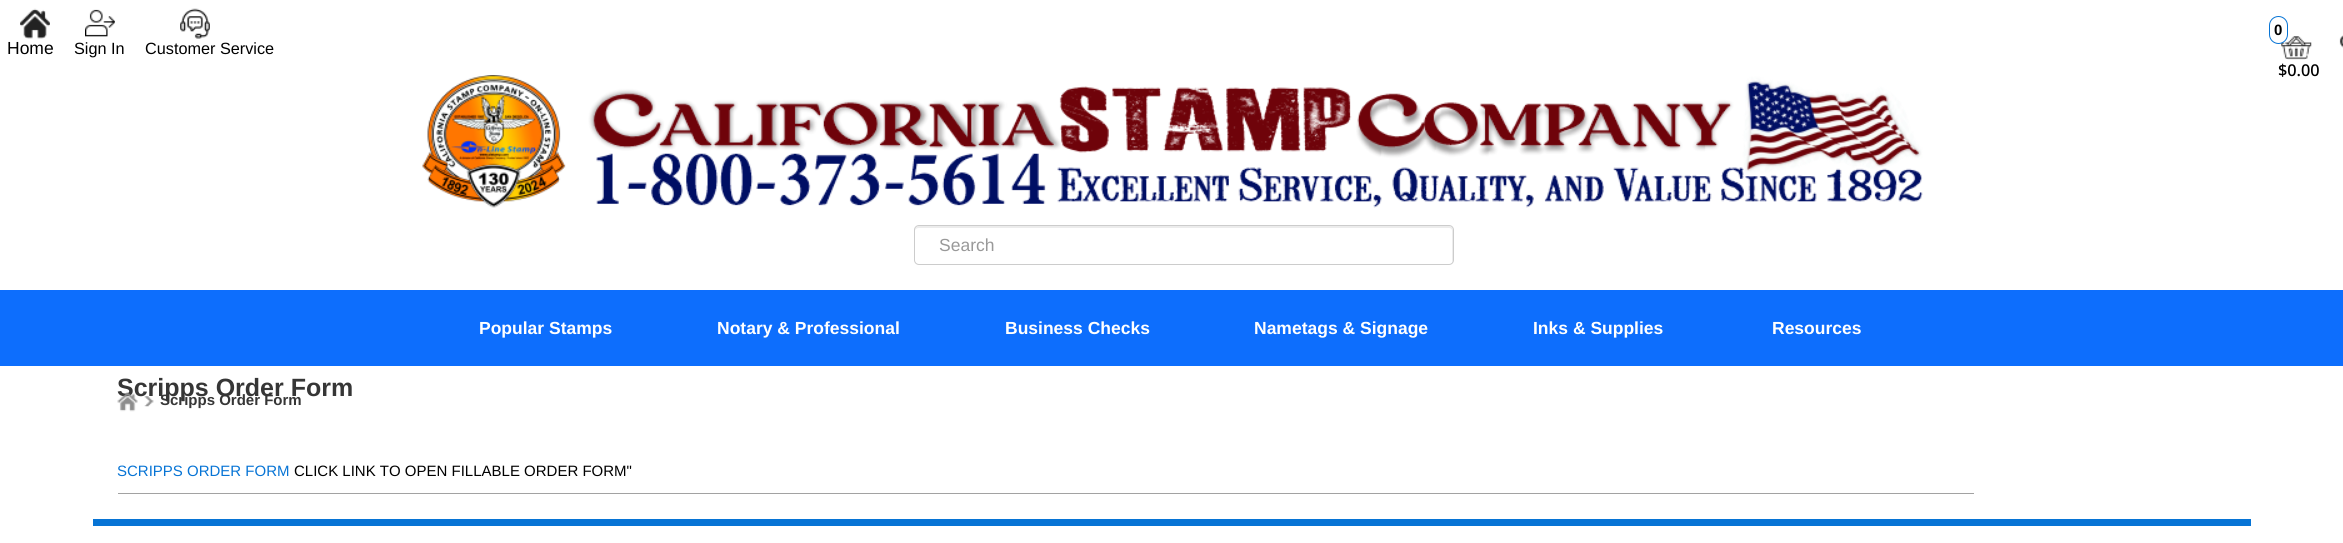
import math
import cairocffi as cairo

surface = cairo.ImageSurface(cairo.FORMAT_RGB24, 2343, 543)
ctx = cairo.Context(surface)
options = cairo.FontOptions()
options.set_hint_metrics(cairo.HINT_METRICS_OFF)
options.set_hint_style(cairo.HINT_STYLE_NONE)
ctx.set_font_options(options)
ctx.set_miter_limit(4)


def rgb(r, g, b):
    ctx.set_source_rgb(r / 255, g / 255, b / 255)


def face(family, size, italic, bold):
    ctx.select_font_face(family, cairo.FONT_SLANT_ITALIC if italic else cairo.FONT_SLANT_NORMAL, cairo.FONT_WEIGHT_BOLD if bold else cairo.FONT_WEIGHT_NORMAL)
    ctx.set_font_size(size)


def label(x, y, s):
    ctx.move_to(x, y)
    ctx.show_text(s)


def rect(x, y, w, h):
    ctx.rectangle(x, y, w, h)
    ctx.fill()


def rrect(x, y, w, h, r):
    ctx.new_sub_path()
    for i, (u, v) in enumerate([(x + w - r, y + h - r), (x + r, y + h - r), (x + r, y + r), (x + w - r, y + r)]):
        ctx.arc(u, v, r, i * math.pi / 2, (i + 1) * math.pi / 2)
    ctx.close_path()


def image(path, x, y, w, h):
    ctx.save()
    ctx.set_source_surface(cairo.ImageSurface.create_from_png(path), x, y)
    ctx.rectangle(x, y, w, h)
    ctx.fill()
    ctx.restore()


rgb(255, 255, 255)
ctx.paint()
image('image0.png', 20, 8, 30, 31)
face('Liberation Sans', 17.5, 0, 0)
rgb(0, 0, 0)
label(7, 54, 'Home')
image('image1.png', 85, 9, 30, 28)
face('Liberation Sans', 16.25, 0, 0)
label(74, 54, 'Sign In')
image('image2.png', 180, 8, 30, 31)
label(145, 54, 'Customer Service')
image('image3.png', 2281, 36, 31, 24)
rgb(255, 255, 255)
rrect(2269.5, 16.5, 18, 27, 9)
ctx.fill_preserve()
rgb(7, 116, 213)
ctx.set_line_width(1)
ctx.stroke()
face('Liberation Sans', 15, 0, 1)
rgb(0, 0, 0)
label(2274, 35, '0')
face('Noto Sans Medium', 16.25, 0, 0)
label(2278, 76, '$0.00')
image('image4.png', 422, 75, 1501, 133)
image('image5.png', 2339, 35, 4, 13)
rgb(236, 236, 236)
ctx.new_path()
ctx.move_to(919, 228)
ctx.line_to(1449, 228)
ctx.curve_to(1451, 228, 1452, 229, 1452, 231)
ctx.line_to(1452, 263)
ctx.curve_to(1452, 262, 1453, 261, 1453, 260)
ctx.line_to(1453, 230)
ctx.curve_to(1453, 228, 1451, 226, 1449, 226)
ctx.line_to(919, 226)
ctx.curve_to(917, 226, 915, 228, 915, 230)
ctx.line_to(915, 231)
ctx.curve_to(915, 229, 917, 228, 919, 228)
ctx.close_path()
ctx.fill()
rrect(914.5, 225.5, 539, 39, 4.5)
rgb(204, 204, 204)
ctx.stroke()
face('Liberation Sans', 17.5, 0, 0)
rgb(153, 153, 153)
label(939, 251, 'Search')
rgb(13, 110, 253)
rect(0, 290, 2343, 76)
face('Liberation Sans', 17.5, 0, 1)
rgb(255, 255, 255)
label(479, 334, 'Popular Stamps')
label(717, 334, 'Notary & Professional')
label(1005, 334, 'Business Checks')
label(1254, 334, 'Nametags & Signage')
label(1533, 334, 'Inks & Supplies')
label(1772, 334, 'Resources')
face('Liberation Sans', 25, 0, 1)
rgb(54, 54, 54)
label(117, 396, 'Scripps Order Form')
face('Liberation Sans', 15, 0, 0)
rgb(7, 116, 213)
label(117, 476, 'SCRIPPS ORDER FORM')
rgb(0, 0, 0)
label(294, 476, 'CLICK LINK TO OPEN FILLABLE ORDER FORM"')
rgb(162, 162, 162)
rect(118, 493, 1856, 1)
image('image6.png', 117, 392, 21, 20)
image('image7.png', 144, 396, 10, 11)
face('Liberation Sans', 15, 0, 1)
rgb(54, 54, 54)
label(160, 405, 'Scripps Order Form')
rgb(7, 116, 213)
rect(93, 519, 2158, 7)
surface.write_to_png('render.png')
